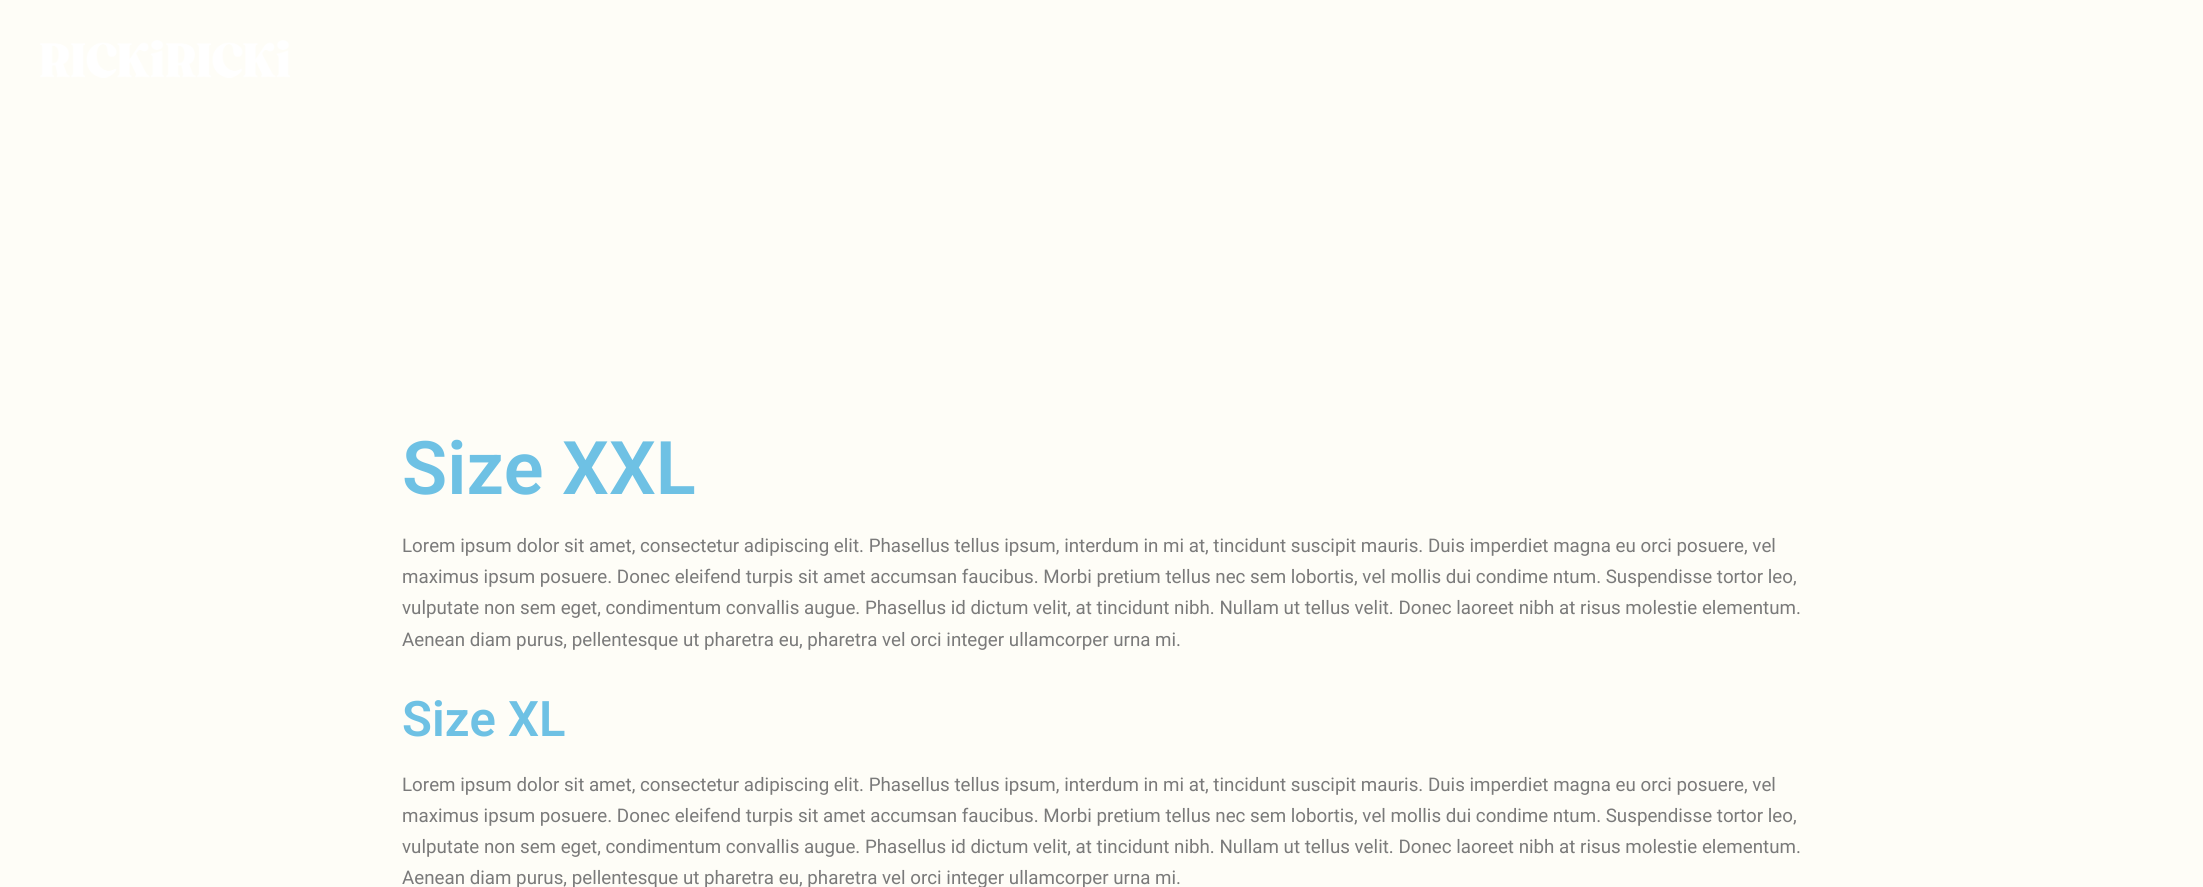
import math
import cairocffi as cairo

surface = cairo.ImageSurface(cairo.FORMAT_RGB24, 2203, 887)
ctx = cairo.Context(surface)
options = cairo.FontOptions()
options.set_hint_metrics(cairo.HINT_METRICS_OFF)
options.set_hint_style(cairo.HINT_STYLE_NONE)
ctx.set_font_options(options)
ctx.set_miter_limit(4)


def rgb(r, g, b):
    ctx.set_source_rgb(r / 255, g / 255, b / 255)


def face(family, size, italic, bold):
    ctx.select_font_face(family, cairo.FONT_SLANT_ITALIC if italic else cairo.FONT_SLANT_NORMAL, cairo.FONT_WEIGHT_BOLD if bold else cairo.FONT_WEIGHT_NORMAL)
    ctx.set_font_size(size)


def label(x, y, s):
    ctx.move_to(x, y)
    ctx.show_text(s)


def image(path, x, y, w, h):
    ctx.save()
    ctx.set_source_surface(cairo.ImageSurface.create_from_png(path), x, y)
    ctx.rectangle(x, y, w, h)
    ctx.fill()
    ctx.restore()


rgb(254, 253, 247)
ctx.paint()
image('image0.png', 40, 40, 250, 38)
face('Roboto SemiBold', 74, 0, 0)
rgb(110, 193, 228)
label(402, 494, 'Size XXL')
face('Roboto', 18.75, 0, 0)
rgb(122, 122, 122)
label(402, 552, 'Lorem ipsum dolor sit amet, consectetur adipiscing elit. Phasellus tellus ipsum, interdum in mi at, tincidunt suscipit mauris. Duis imperdiet magna eu orci posuere, vel')
label(402, 583, 'maximus ipsum posuere. Donec eleifend turpis sit amet accumsan faucibus. Morbi pretium tellus nec sem lobortis, vel mollis dui condime ntum. Suspendisse tortor leo,')
label(402, 614, 'vulputate non sem eget, condimentum convallis augue. Phasellus id dictum velit, at tincidunt nibh. Nullam ut tellus velit. Donec laoreet nibh at risus molestie elementum.')
label(402, 646, 'Aenean diam purus, pellentesque ut pharetra eu, pharetra vel orci integer ullamcorper urna mi.')
face('Roboto SemiBold', 49, 0, 0)
rgb(110, 193, 228)
label(402, 736, 'Size XL')
face('Roboto', 18.75, 0, 0)
rgb(122, 122, 122)
label(402, 791, 'Lorem ipsum dolor sit amet, consectetur adipiscing elit. Phasellus tellus ipsum, interdum in mi at, tincidunt suscipit mauris. Duis imperdiet magna eu orci posuere, vel')
label(402, 822, 'maximus ipsum posuere. Donec eleifend turpis sit amet accumsan faucibus. Morbi pretium tellus nec sem lobortis, vel mollis dui condime ntum. Suspendisse tortor leo,')
label(402, 853, 'vulputate non sem eget, condimentum convallis augue. Phasellus id dictum velit, at tincidunt nibh. Nullam ut tellus velit. Donec laoreet nibh at risus molestie elementum.')
label(402, 884, 'Aenean diam purus, pellentesque ut pharetra eu, pharetra vel orci integer ullamcorper urna mi.')
surface.write_to_png('render.png')
